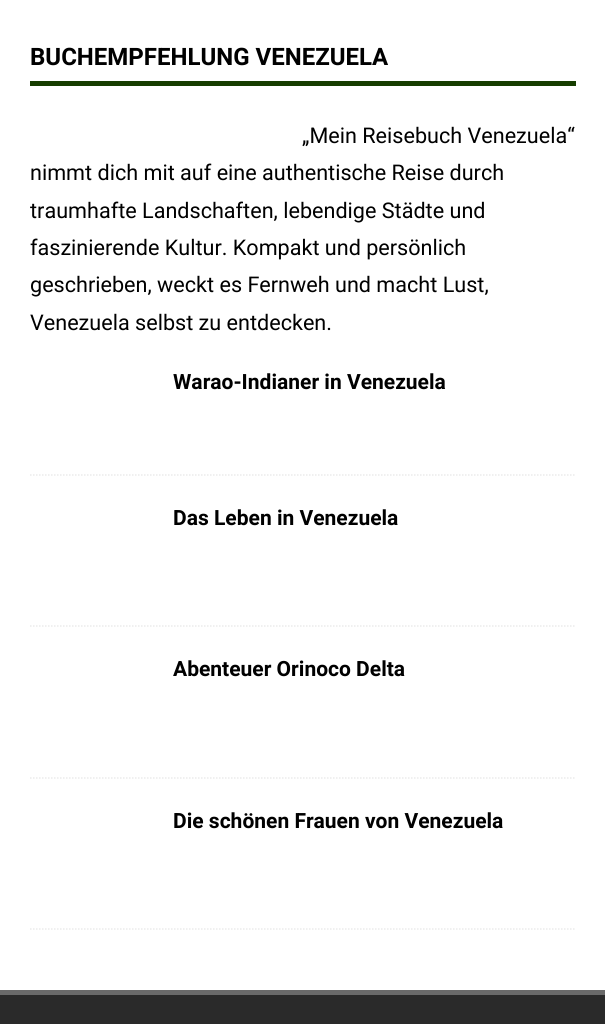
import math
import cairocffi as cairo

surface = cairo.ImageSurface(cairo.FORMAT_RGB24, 605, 1024)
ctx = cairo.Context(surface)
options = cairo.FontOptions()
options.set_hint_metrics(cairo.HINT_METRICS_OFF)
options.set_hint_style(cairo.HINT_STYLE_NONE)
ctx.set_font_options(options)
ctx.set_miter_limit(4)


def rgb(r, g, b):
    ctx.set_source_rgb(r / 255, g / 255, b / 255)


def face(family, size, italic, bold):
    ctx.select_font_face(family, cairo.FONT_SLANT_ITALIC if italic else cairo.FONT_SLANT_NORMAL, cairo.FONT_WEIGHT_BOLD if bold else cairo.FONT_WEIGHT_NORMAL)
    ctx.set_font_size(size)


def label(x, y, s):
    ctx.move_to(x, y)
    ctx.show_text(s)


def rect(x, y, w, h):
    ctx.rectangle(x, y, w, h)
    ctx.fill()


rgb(255, 255, 255)
ctx.paint()
rgb(22, 61, 0)
rect(30, 81, 546, 5)
face('Heebo', 24, 0, 1)
rgb(0, 0, 0)
label(30, 65, 'BUCHEMPFEHLUNG VENEZUELA')
face('Roboto', 21.6, 0, 0)
label(302, 143, '„Mein Reisebuch Venezuela“')
label(30, 180, 'nimmt dich mit auf eine authentische Reise durch')
label(30, 218, 'traumhafte Landschaften, lebendige Städte und')
label(30, 255, 'faszinierende Kultur. Kompakt und persönlich')
label(30, 292, 'geschrieben, weckt es Fernweh und macht Lust,')
label(30, 330, 'Venezuela selbst zu entdecken.')
ctx.new_path()
ctx.move_to(30, 475)
ctx.line_to(576, 475)
rgb(235, 235, 235)
ctx.set_line_width(1.5)
ctx.set_dash([1.5, 1.5])
ctx.stroke()
face('Heebo', 21, 0, 1)
rgb(0, 0, 0)
label(173, 389, 'Warao-Indianer in Venezuela')
ctx.new_path()
ctx.move_to(30, 626)
ctx.line_to(576, 626)
rgb(235, 235, 235)
ctx.stroke()
rgb(0, 0, 0)
label(173, 525, 'Das Leben in Venezuela')
ctx.new_path()
ctx.move_to(30, 778)
ctx.line_to(576, 778)
rgb(235, 235, 235)
ctx.stroke()
rgb(0, 0, 0)
label(173, 676, 'Abenteuer Orinoco Delta')
ctx.new_path()
ctx.move_to(30, 929)
ctx.line_to(576, 929)
rgb(235, 235, 235)
ctx.stroke()
rgb(0, 0, 0)
label(173, 828, 'Die schönen Frauen von Venezuela')
rgb(42, 42, 42)
rect(0, 995, 605, 29)
rgb(106, 106, 106)
rect(0, 990, 605, 5)
surface.write_to_png('render.png')
